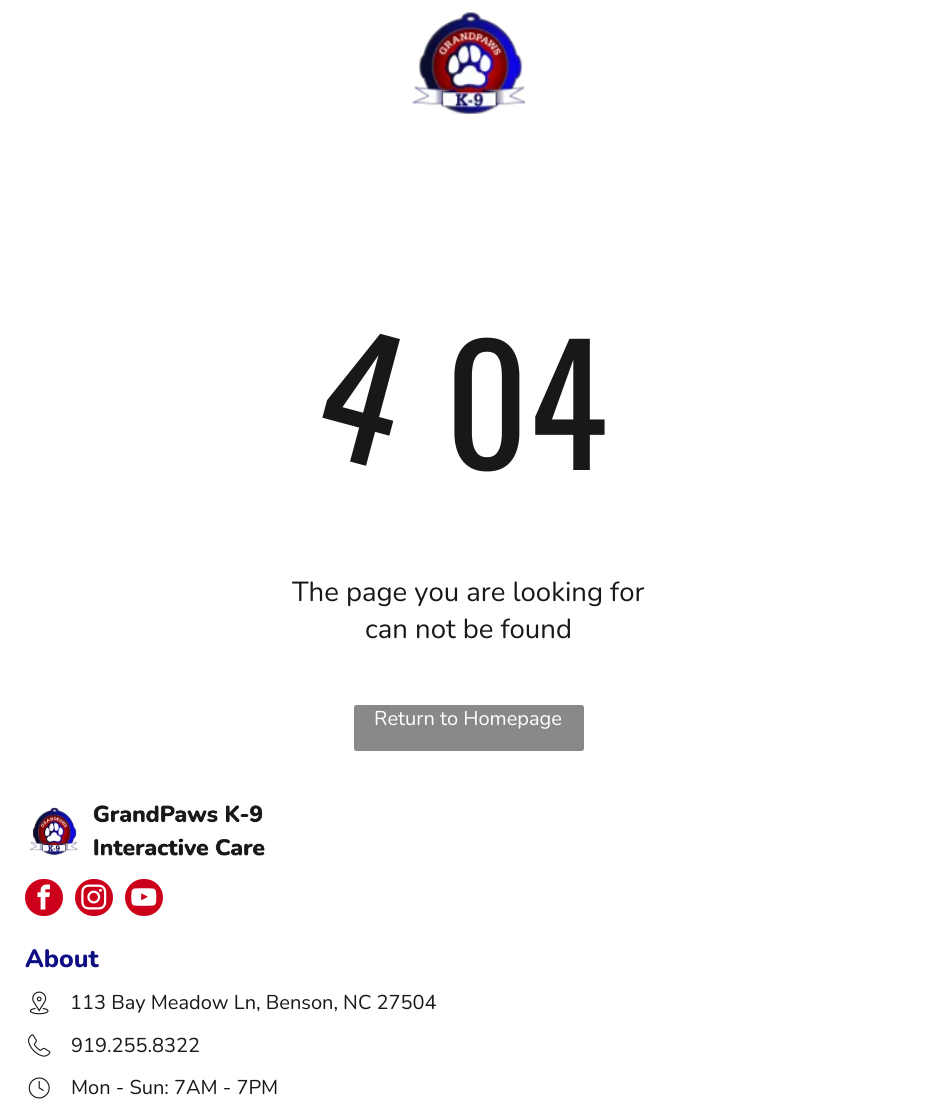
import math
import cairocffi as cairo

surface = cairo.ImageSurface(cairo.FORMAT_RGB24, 936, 1115)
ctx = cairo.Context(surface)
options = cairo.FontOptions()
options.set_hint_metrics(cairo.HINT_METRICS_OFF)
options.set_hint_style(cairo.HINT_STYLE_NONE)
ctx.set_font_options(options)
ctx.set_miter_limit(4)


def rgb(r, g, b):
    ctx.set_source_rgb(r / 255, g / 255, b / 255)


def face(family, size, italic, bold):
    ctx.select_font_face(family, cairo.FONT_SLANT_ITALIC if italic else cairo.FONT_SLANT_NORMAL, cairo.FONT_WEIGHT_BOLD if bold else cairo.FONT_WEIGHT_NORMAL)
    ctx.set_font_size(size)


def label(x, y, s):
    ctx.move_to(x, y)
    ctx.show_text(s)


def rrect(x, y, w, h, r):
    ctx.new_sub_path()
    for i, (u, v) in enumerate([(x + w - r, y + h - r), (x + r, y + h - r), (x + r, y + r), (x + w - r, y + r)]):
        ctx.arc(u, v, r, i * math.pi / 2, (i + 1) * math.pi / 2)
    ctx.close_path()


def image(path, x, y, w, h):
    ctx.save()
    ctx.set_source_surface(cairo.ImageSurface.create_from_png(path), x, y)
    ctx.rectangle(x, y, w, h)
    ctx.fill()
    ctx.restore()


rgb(255, 255, 255)
ctx.paint()
image('image0.png', 412, 12, 113, 102)
face('Oswald', 162, 0, 0)
rgb(24, 24, 24)
ctx.save()
ctx.translate(307, 450)
ctx.rotate(15 * math.pi / 180)
label(0, 0, '4')
ctx.restore()
label(445, 470, '04')
face('Nunito', 27.5, 0, 0)
label(292, 601, 'The page you are looking for')
label(365, 638, 'can not be found')
rgb(137, 137, 137)
rrect(354, 705, 230, 46, 2.5)
ctx.fill()
face('Nunito', 20, 0, 0)
rgb(255, 255, 255)
label(374, 725, 'Return to Homepage')
image('image1.png', 30, 804, 236, 54)
rgb(204, 0, 27)
rrect(25, 879, 38, 37, 18.5)
ctx.fill()
image('image2.png', 37, 884, 14, 26)
rrect(75, 879, 38, 37, 18.5)
ctx.fill()
image('image3.png', 81, 884, 26, 26)
rrect(125, 879, 38, 37, 18.5)
ctx.fill()
image('image4.png', 131, 888, 26, 18)
face('Nunito ExtraBold', 25, 0, 0)
rgb(14, 13, 130)
label(25, 967, 'About')
image('image5.png', 29, 991, 20, 24)
face('Nunito', 20, 0, 0)
rgb(24, 24, 24)
label(70, 1009, '113 Bay Meadow Ln, Benson, NC 27504')
image('image6.png', 28, 1034, 23, 23)
label(71, 1052, '919.255.8322')
image('image7.png', 28, 1077, 22, 22)
label(71, 1094, 'Mon - Sun: 7AM - 7PM')
surface.write_to_png('render.png')
